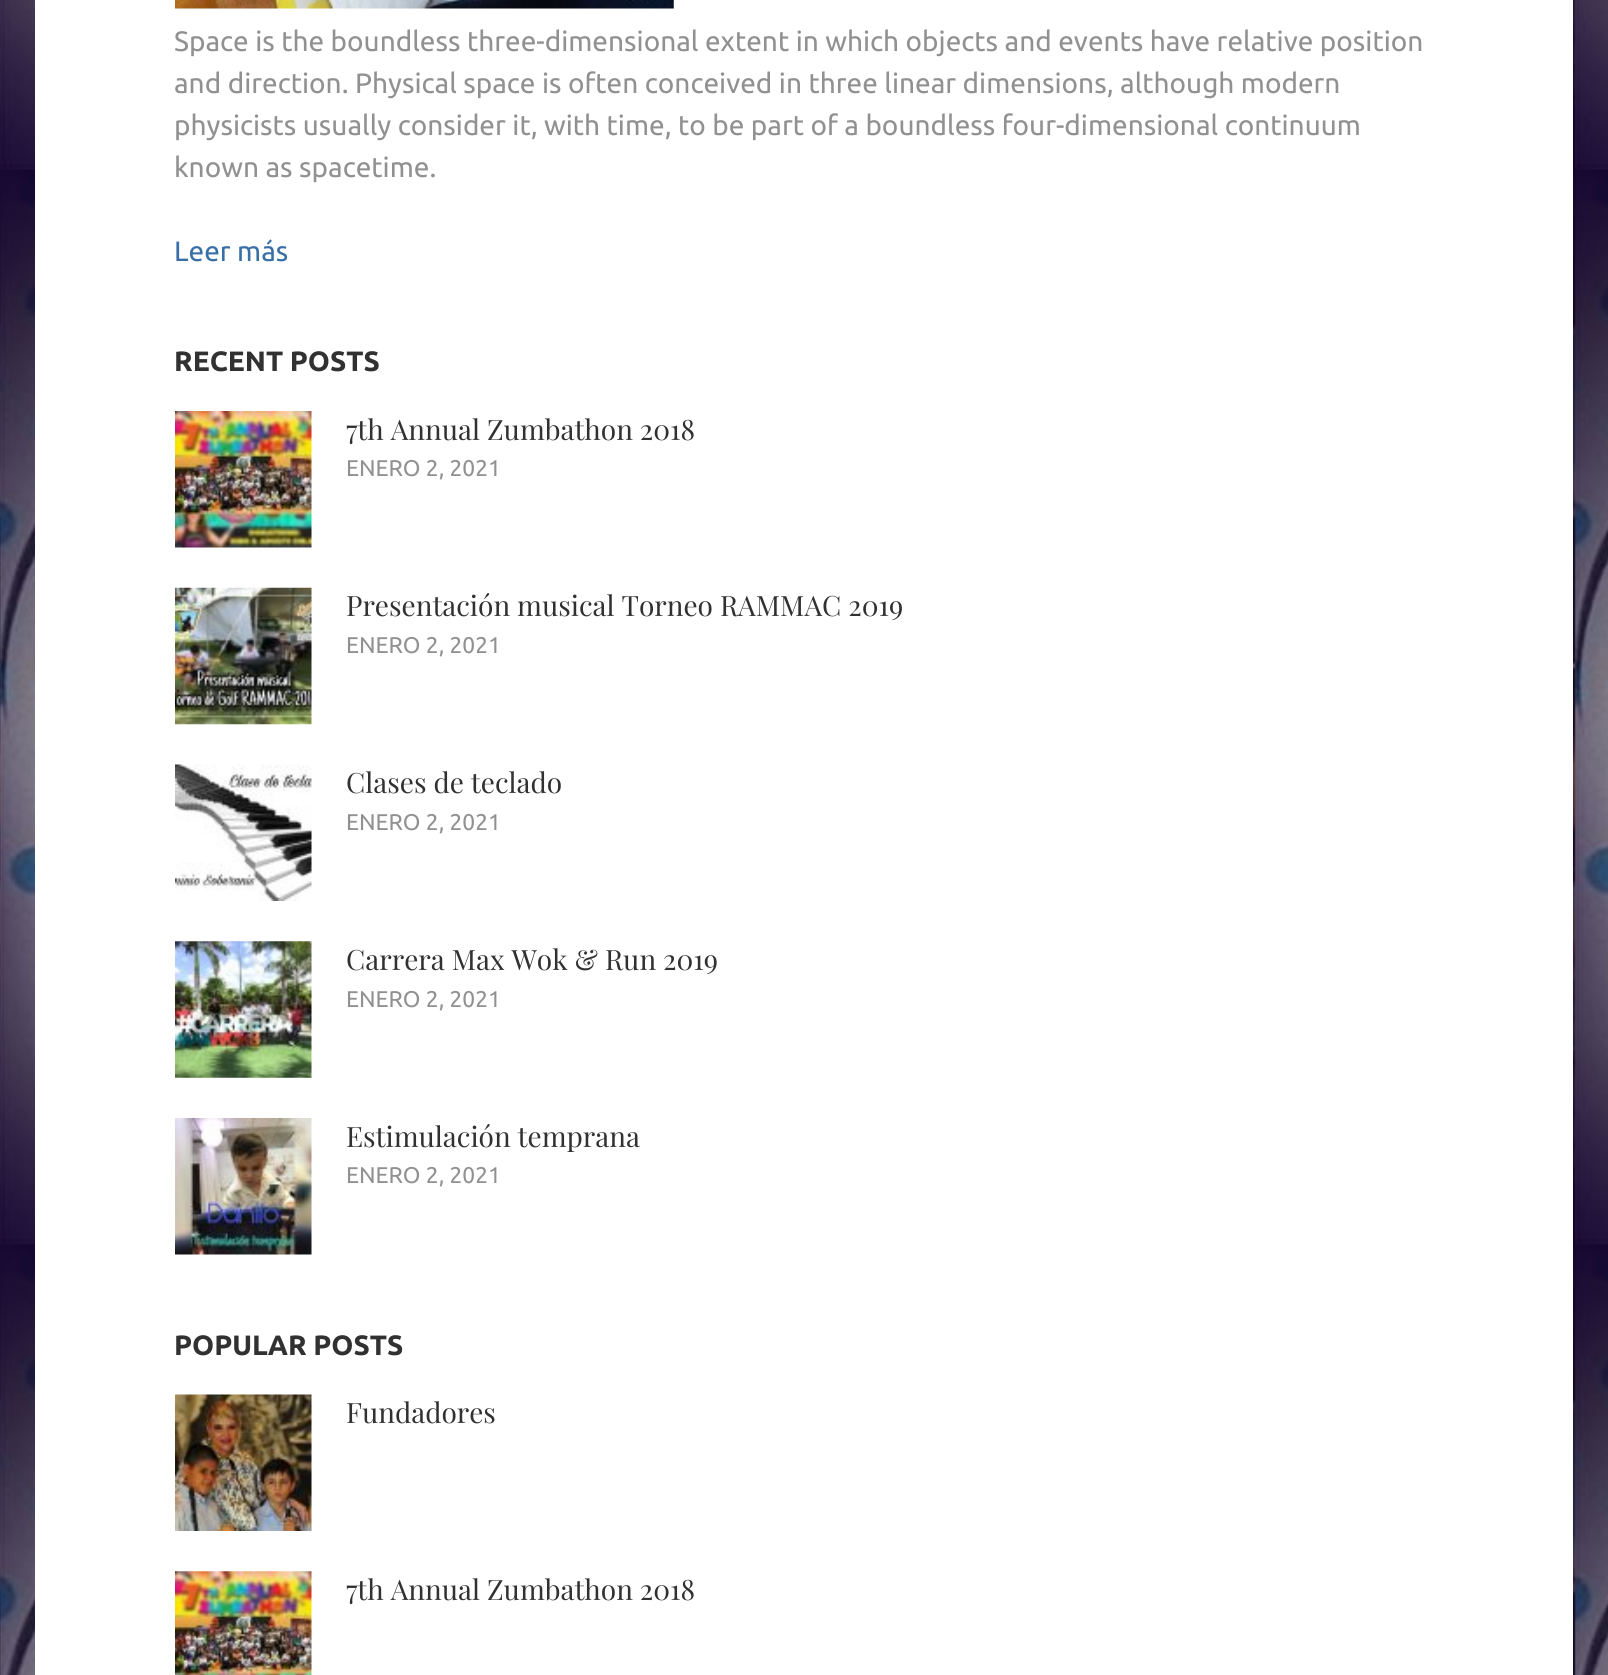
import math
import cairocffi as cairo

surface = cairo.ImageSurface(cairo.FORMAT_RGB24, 1608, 1675)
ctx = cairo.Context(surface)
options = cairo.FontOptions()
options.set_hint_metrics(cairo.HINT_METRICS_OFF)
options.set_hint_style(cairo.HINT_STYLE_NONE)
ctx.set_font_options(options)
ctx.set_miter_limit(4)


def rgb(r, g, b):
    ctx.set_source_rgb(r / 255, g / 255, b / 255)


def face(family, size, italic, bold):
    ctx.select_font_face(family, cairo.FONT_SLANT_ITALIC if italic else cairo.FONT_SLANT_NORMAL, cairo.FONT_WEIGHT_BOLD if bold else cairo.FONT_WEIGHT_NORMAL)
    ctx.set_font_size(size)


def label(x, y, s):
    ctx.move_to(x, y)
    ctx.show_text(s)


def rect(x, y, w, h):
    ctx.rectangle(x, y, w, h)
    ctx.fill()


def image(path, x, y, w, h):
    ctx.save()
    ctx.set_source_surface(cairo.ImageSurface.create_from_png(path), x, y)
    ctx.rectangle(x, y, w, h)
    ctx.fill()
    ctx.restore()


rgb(255, 255, 255)
ctx.paint()
image('image0.png', 0, 0, 1608, 1675)
rgb(255, 255, 255)
rect(35, 0, 1538, 1675)
image('image1.png', 175, 0, 499, 9)
face('Ubuntu', 28, 0, 0)
rgb(145, 145, 145)
label(174, 51, 'Space is the boundless three-dimensional extent in which objects and events have relative position')
label(174, 93, 'and direction. Physical space is often conceived in three linear dimensions, although modern')
label(174, 135, 'physicists usually consider it, with time, to be part of a boundless four-dimensional continuum')
label(174, 177, 'known as spacetime.')
rgb(56, 111, 167)
label(174, 261, 'Leer más')
face('Ubuntu', 28, 0, 1)
rgb(49, 49, 49)
label(174, 371, 'RECENT POSTS')
image('image2.png', 175, 411, 137, 137)
face('Playfair Display', 28, 0, 0)
label(346, 440, '7th Annual Zumbathon 2018')
face('Ubuntu', 22.75, 0, 0)
rgb(145, 145, 145)
label(346, 476, 'ENERO 2, 2021')
image('image3.png', 175, 587, 137, 138)
face('Playfair Display', 28, 0, 0)
rgb(49, 49, 49)
label(346, 616, 'Presentación musical Torneo RAMMAC 2019')
face('Ubuntu', 22.75, 0, 0)
rgb(145, 145, 145)
label(346, 653, 'ENERO 2, 2021')
image('image4.png', 175, 764, 137, 137)
face('Playfair Display', 28, 0, 0)
rgb(49, 49, 49)
label(346, 793, 'Clases de teclado')
face('Ubuntu', 22.75, 0, 0)
rgb(145, 145, 145)
label(346, 830, 'ENERO 2, 2021')
image('image5.png', 175, 941, 137, 137)
face('Playfair Display', 28, 0, 0)
rgb(49, 49, 49)
label(346, 970, 'Carrera Max Wok & Run 2019')
face('Ubuntu', 22.75, 0, 0)
rgb(145, 145, 145)
label(346, 1007, 'ENERO 2, 2021')
image('image6.png', 175, 1118, 137, 137)
face('Playfair Display', 28, 0, 0)
rgb(49, 49, 49)
label(346, 1147, 'Estimulación temprana')
face('Ubuntu', 22.75, 0, 0)
rgb(145, 145, 145)
label(346, 1183, 'ENERO 2, 2021')
face('Ubuntu', 28, 0, 1)
rgb(49, 49, 49)
label(174, 1355, 'POPULAR POSTS')
image('image7.png', 175, 1394, 137, 137)
face('Playfair Display', 28, 0, 0)
label(346, 1423, 'Fundadores')
image('image8.png', 175, 1571, 137, 104)
label(346, 1600, '7th Annual Zumbathon 2018')
surface.write_to_png('render.png')
